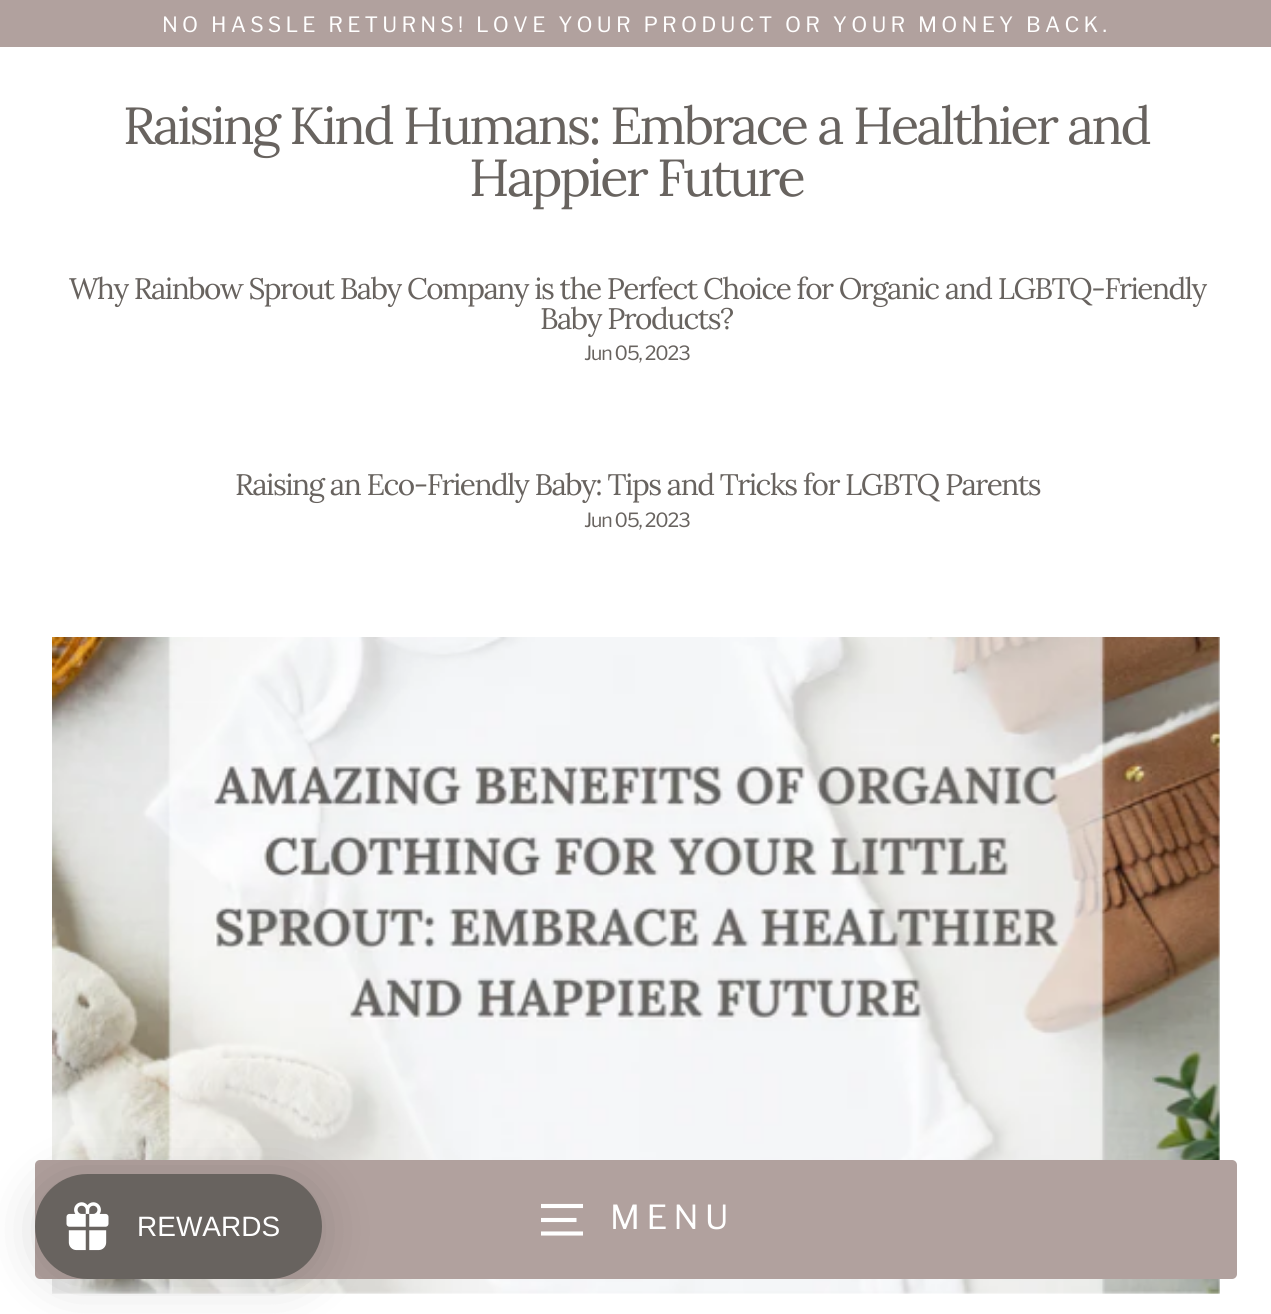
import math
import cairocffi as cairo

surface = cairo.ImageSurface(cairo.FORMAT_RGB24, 1271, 1314)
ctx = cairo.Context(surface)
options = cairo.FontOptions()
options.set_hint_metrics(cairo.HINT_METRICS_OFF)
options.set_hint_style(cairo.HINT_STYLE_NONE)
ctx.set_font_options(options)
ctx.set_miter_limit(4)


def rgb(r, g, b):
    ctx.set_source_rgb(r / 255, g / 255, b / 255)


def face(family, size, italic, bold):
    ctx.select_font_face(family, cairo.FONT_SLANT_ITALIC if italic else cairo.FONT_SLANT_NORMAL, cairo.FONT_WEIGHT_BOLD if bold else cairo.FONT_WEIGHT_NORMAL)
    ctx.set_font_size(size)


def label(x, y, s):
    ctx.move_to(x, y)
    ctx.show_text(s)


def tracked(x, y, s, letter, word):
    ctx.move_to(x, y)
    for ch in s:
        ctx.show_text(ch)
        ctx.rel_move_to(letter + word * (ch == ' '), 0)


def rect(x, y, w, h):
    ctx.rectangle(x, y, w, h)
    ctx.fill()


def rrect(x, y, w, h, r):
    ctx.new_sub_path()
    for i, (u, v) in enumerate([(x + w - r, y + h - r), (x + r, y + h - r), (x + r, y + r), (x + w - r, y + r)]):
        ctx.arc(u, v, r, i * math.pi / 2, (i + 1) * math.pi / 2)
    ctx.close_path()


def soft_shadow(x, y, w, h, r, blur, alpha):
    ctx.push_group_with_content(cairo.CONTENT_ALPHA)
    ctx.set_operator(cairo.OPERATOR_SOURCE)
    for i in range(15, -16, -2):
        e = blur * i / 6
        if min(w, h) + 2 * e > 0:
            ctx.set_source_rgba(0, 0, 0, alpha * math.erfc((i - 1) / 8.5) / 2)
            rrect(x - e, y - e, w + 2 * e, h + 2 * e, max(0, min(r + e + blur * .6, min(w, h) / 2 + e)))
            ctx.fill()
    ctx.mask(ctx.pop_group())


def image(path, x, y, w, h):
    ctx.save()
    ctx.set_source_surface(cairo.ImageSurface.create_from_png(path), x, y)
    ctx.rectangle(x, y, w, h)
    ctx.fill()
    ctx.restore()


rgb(255, 255, 255)
ctx.paint()
rgb(177, 161, 158)
rect(0, 0, 1271, 47)
face('Libre Franklin Thin', 21, 0, 0)
rgb(255, 255, 255)
tracked(162, 32, 'NO HASSLE RETURNS! LOVE YOUR PRODUCT OR YOUR MONEY BACK.', 4.2, 0)
gradient = cairo.LinearGradient(67, 556, 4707, 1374)
gradient.add_color_stop_rgba(0.4, 0.941, 0.941, 0.941, 1)
gradient.add_color_stop_rgba(0.63, 0.91, 0.91, 0.91, 1)
gradient.add_color_stop_rgba(0.79, 0.941, 0.941, 0.941, 1)
ctx.set_source(gradient)
rect(53, 637, 1167, 656)
image('image0.png', 52, 637, 1168, 657)
rgb(177, 161, 158)
rrect(35, 1160, 1202, 119, 5)
ctx.fill()
ctx.new_path()
ctx.move_to(541, 1206)
ctx.line_to(583, 1206)
ctx.move_to(541, 1220)
ctx.line_to(576.5, 1220)
ctx.move_to(541, 1233.5)
ctx.line_to(583, 1233.5)
rgb(255, 255, 255)
ctx.set_line_width(4.1)
ctx.stroke()
face('Libre Franklin Thin', 33, 0, 0)
tracked(610, 1229, 'MENU', 6.5, 0)
face('Lora', 52.1, 0, 0)
rgb(104, 99, 95)
tracked(123, 144, 'Raising Kind Humans: Embrace a Healthier and', -2.6, 0)
tracked(469, 196, 'Happier Future', -2.6, 0)
face('Lora', 29.7, 0, 0)
tracked(69, 299, 'Why Rainbow Sprout Baby Company is the Perfect Choice for Organic and LGBTQ-Friendly', -1.48, -0.1)
tracked(540, 329, 'Baby Products?', -1.48, 0)
face('Libre Franklin Thin', 19.5, 0, 0)
tracked(584, 360, 'Jun 05, 2023', -1.1, 0)
face('Lora', 29.7, 0, 0)
tracked(235, 495, 'Raising an Eco-Friendly Baby: Tips and Tricks for LGBTQ Parents', -1.48, 0)
face('Libre Franklin Thin', 19.5, 0, 0)
tracked(584, 527, 'Jun 05, 2023', -1.1, 0)
rgb(0, 0, 0)
soft_shadow(35, 1178, 287, 105, 52.5, 26, 0.15)
rgb(104, 99, 95)
rrect(35, 1174, 287, 105, 52.5)
ctx.fill()
image('image1.png', 66, 1202, 43, 49)
face('Liberation Sans', 28, 0, 0)
rgb(255, 255, 255)
label(137, 1236, 'REWARDS')
surface.write_to_png('render.png')
